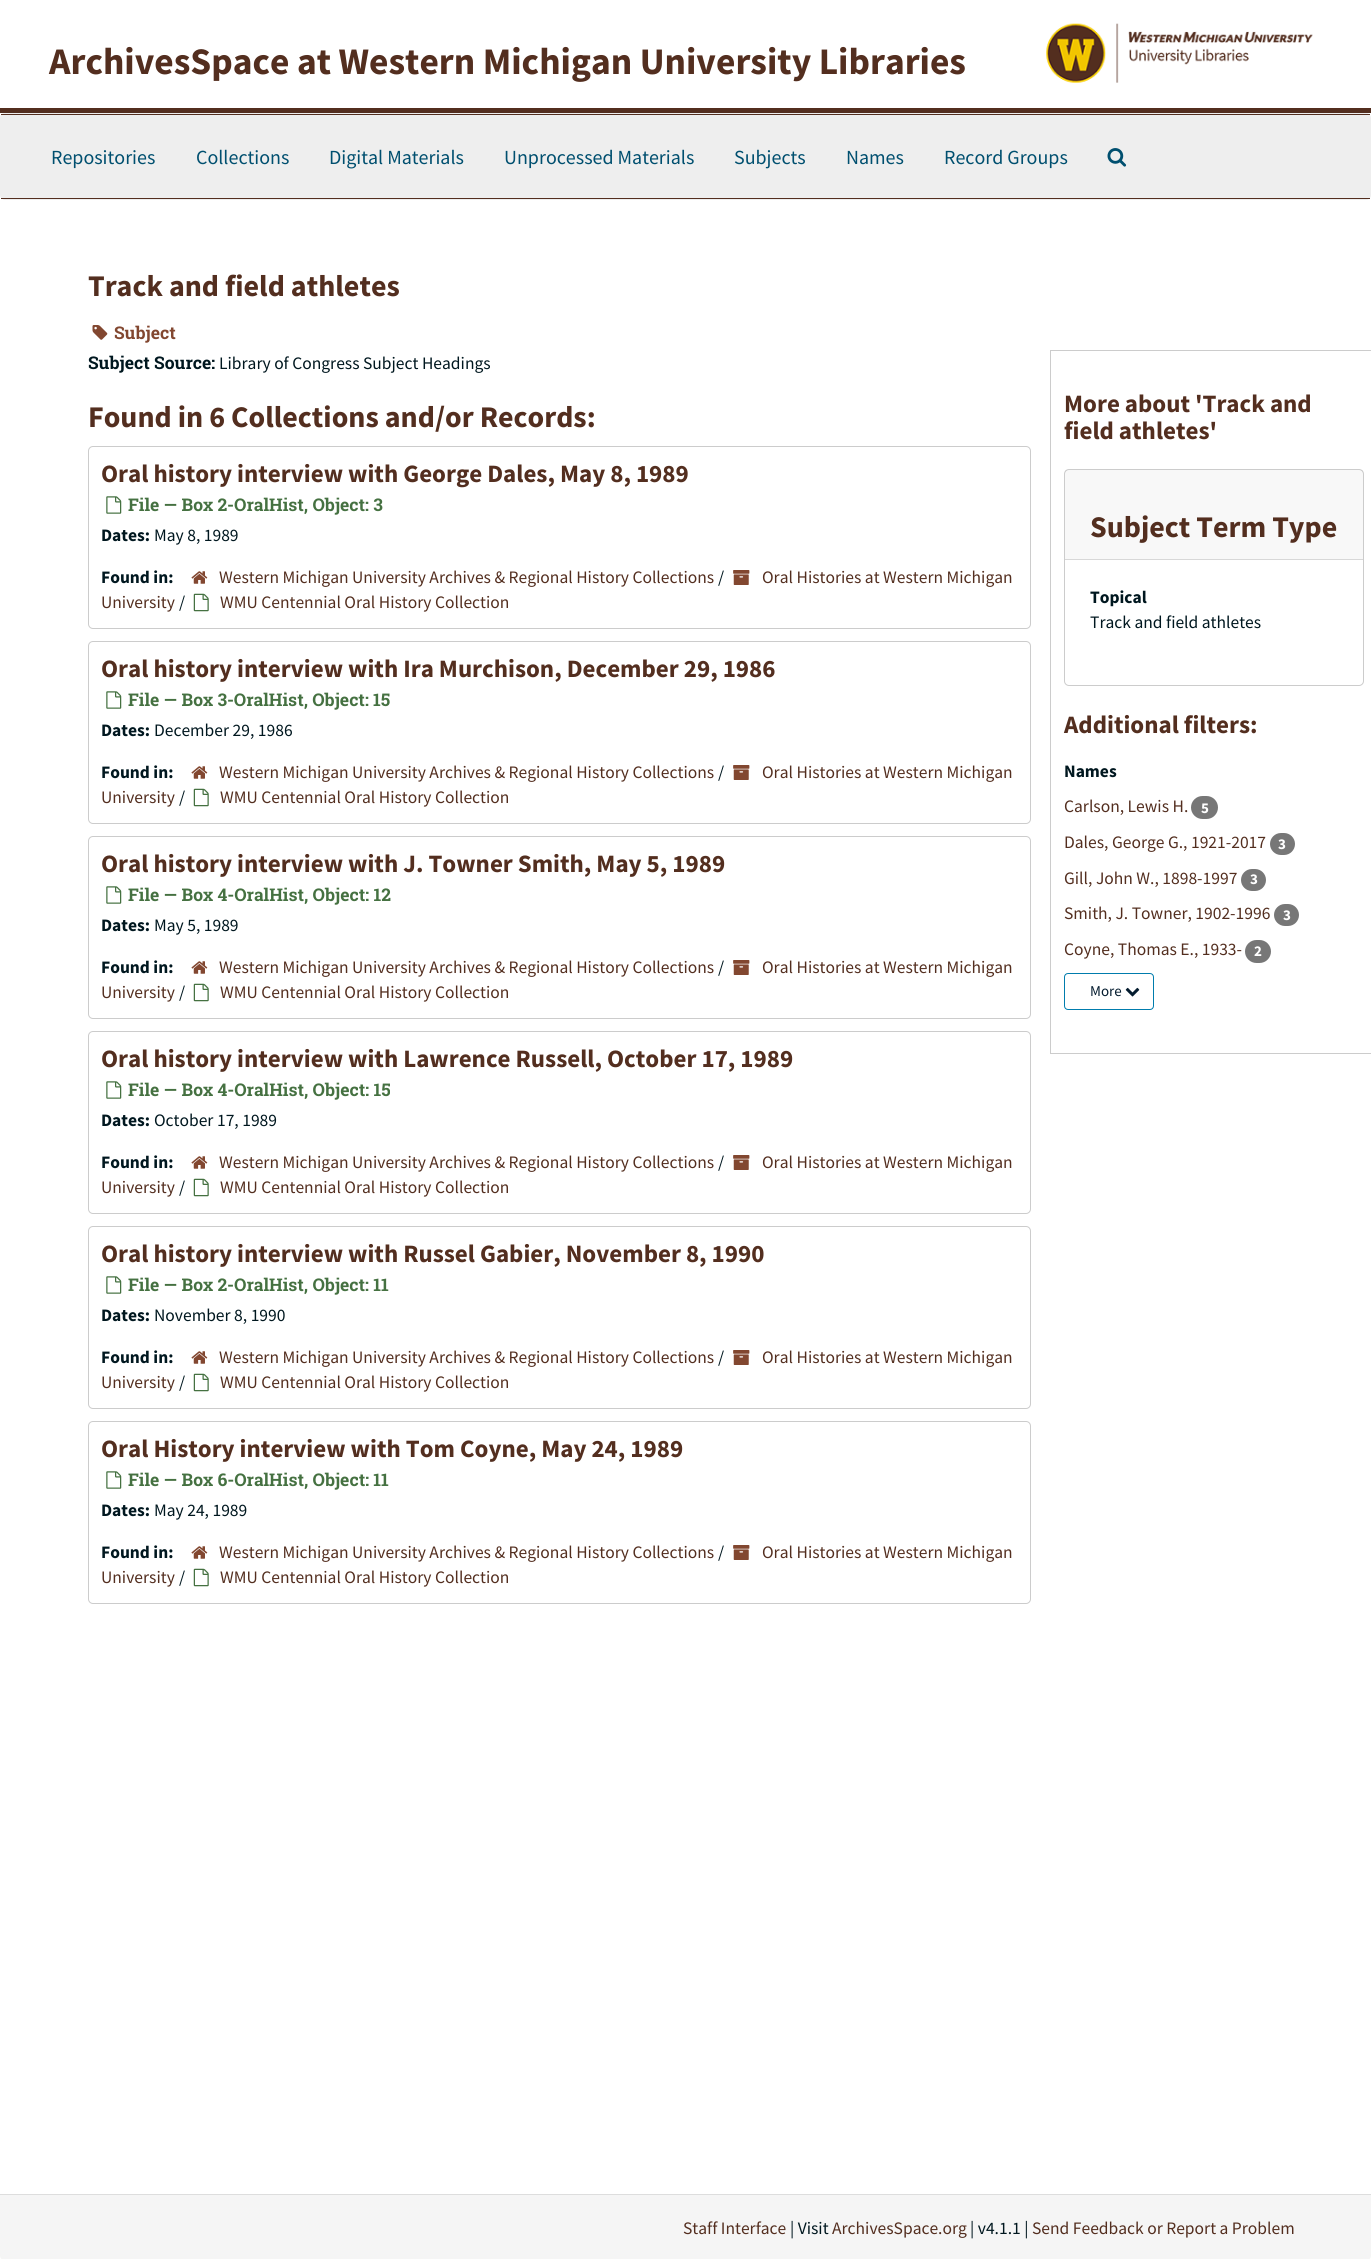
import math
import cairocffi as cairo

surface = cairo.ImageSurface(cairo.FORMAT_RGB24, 1371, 2259)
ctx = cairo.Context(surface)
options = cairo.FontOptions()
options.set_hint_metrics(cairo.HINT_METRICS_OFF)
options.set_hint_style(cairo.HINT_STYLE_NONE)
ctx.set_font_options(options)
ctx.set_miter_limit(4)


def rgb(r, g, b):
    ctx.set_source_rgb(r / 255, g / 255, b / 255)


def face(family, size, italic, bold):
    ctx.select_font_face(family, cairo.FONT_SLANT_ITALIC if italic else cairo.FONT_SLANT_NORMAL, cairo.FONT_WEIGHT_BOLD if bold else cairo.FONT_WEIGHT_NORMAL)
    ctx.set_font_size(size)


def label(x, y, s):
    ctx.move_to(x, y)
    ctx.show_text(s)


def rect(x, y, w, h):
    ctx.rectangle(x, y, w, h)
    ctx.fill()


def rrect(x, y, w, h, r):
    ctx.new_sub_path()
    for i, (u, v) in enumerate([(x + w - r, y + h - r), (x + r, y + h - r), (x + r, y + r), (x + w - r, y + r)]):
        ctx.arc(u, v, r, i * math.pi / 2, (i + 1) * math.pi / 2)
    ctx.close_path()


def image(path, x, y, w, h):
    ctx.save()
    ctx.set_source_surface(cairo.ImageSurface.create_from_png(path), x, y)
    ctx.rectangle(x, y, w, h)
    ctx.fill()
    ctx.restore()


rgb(255, 255, 255)
ctx.paint()
rgb(83, 46, 31)
rect(0, 108, 1371, 5)
face('Source Sans Pro', 37.5, 0, 1)
label(49, 74, 'ArchivesSpace at Western Michigan University Libraries')
image('image0.png', 1046, 23, 267, 60)
rrect(0.5, 113.5, 1370, 86, 4.5)
rgb(238, 238, 238)
ctx.set_line_width(1)
ctx.stroke()
rect(1, 115, 1369, 83)
rgb(83, 46, 31)
rect(1, 114, 1369, 1)
rect(1, 198, 1369, 1)
face('Source Sans Pro', 20, 0, 0)
rgb(0, 79, 111)
label(51, 164, 'Repositories')
label(196, 164, 'Collections')
label(329, 164, 'Digital Materials')
label(504, 164, 'Unprocessed Materials')
label(734, 164, 'Subjects')
label(846, 164, 'Names')
label(944, 164, 'Record Groups')
image('image1.png', 1107, 148, 20, 19)
face('Source Sans Pro', 30, 0, 1)
rgb(83, 46, 31)
label(88, 296, 'Track and field athletes')
image('image2.png', 92, 325, 16, 15)
face('Roboto Slab', 17.5, 0, 1)
rgb(130, 71, 48)
label(114, 339, 'Subject')
rgb(0, 23, 31)
label(88, 369, 'Subject Source:')
face('Source Sans Pro', 17.5, 0, 0)
label(219, 369, 'Library of Congress Subject Headings')
face('Source Sans Pro', 30, 0, 1)
rgb(83, 46, 31)
label(88, 427, 'Found in 6 Collections and/or Records:')
rrect(88.5, 446.5, 942, 182, 4.5)
rgb(204, 204, 204)
ctx.stroke()
face('Source Sans Pro', 25, 0, 1)
rgb(83, 46, 31)
label(101, 482, 'Oral history interview with George Dales, May 8, 1989')
image('image3.png', 106, 496, 16, 18)
face('Roboto Slab', 17.5, 0, 1)
rgb(69, 113, 65)
label(128, 511, 'File — Box 2-OralHist, Object: 3')
face('Source Sans Pro', 17.5, 0, 1)
rgb(0, 23, 31)
label(101, 541, 'Dates:')
face('Source Sans Pro', 17.5, 0, 0)
label(154, 541, 'May 8, 1989')
face('Source Sans Pro', 17.5, 0, 1)
label(101, 583, 'Found in:')
image('image4.png', 733, 570, 17, 15)
face('Source Sans Pro', 17.5, 0, 0)
rgb(83, 46, 31)
label(762, 583, 'Oral Histories at Western Michigan')
label(101, 608, 'University')
image('image5.png', 191, 571, 17, 13)
label(219, 583, 'Western Michigan University Archives & Regional History Collections')
rgb(0, 23, 31)
label(718, 583, '/')
label(179, 608, '/')
image('image6.png', 193, 593, 16, 19)
rgb(83, 46, 31)
label(220, 608, 'WMU Centennial Oral History Collection')
rrect(88.5, 641.5, 942, 182, 4.5)
rgb(204, 204, 204)
ctx.stroke()
face('Source Sans Pro', 25, 0, 1)
rgb(83, 46, 31)
label(101, 677, 'Oral history interview with Ira Murchison, December 29, 1986')
image('image3.png', 106, 691, 16, 18)
face('Roboto Slab', 17.5, 0, 1)
rgb(69, 113, 65)
label(128, 706, 'File — Box 3-OralHist, Object: 15')
face('Source Sans Pro', 17.5, 0, 1)
rgb(0, 23, 31)
label(101, 736, 'Dates:')
face('Source Sans Pro', 17.5, 0, 0)
label(154, 736, 'December 29, 1986')
face('Source Sans Pro', 17.5, 0, 1)
label(101, 778, 'Found in:')
image('image4.png', 733, 765, 17, 15)
face('Source Sans Pro', 17.5, 0, 0)
rgb(83, 46, 31)
label(762, 778, 'Oral Histories at Western Michigan')
label(101, 803, 'University')
image('image5.png', 191, 766, 17, 13)
label(219, 778, 'Western Michigan University Archives & Regional History Collections')
rgb(0, 23, 31)
label(718, 778, '/')
label(179, 803, '/')
image('image6.png', 193, 788, 16, 19)
rgb(83, 46, 31)
label(220, 803, 'WMU Centennial Oral History Collection')
rrect(88.5, 836.5, 942, 182, 4.5)
rgb(204, 204, 204)
ctx.stroke()
face('Source Sans Pro', 25, 0, 1)
rgb(83, 46, 31)
label(101, 872, 'Oral history interview with J. Towner Smith, May 5, 1989')
image('image3.png', 106, 886, 16, 18)
face('Roboto Slab', 17.5, 0, 1)
rgb(69, 113, 65)
label(128, 901, 'File — Box 4-OralHist, Object: 12')
face('Source Sans Pro', 17.5, 0, 1)
rgb(0, 23, 31)
label(101, 931, 'Dates:')
face('Source Sans Pro', 17.5, 0, 0)
label(154, 931, 'May 5, 1989')
face('Source Sans Pro', 17.5, 0, 1)
label(101, 973, 'Found in:')
image('image4.png', 733, 960, 17, 15)
face('Source Sans Pro', 17.5, 0, 0)
rgb(83, 46, 31)
label(762, 973, 'Oral Histories at Western Michigan')
label(101, 998, 'University')
image('image5.png', 191, 961, 17, 13)
label(219, 973, 'Western Michigan University Archives & Regional History Collections')
rgb(0, 23, 31)
label(718, 973, '/')
label(179, 998, '/')
image('image6.png', 193, 983, 16, 19)
rgb(83, 46, 31)
label(220, 998, 'WMU Centennial Oral History Collection')
rrect(88.5, 1031.5, 942, 182, 4.5)
rgb(204, 204, 204)
ctx.stroke()
face('Source Sans Pro', 25, 0, 1)
rgb(83, 46, 31)
label(101, 1067, 'Oral history interview with Lawrence Russell, October 17, 1989')
image('image3.png', 106, 1081, 16, 18)
face('Roboto Slab', 17.5, 0, 1)
rgb(69, 113, 65)
label(128, 1096, 'File — Box 4-OralHist, Object: 15')
face('Source Sans Pro', 17.5, 0, 1)
rgb(0, 23, 31)
label(101, 1126, 'Dates:')
face('Source Sans Pro', 17.5, 0, 0)
label(154, 1126, 'October 17, 1989')
face('Source Sans Pro', 17.5, 0, 1)
label(101, 1168, 'Found in:')
image('image4.png', 733, 1155, 17, 15)
face('Source Sans Pro', 17.5, 0, 0)
rgb(83, 46, 31)
label(762, 1168, 'Oral Histories at Western Michigan')
label(101, 1193, 'University')
image('image5.png', 191, 1156, 17, 13)
label(219, 1168, 'Western Michigan University Archives & Regional History Collections')
rgb(0, 23, 31)
label(718, 1168, '/')
label(179, 1193, '/')
image('image6.png', 193, 1178, 16, 19)
rgb(83, 46, 31)
label(220, 1193, 'WMU Centennial Oral History Collection')
rrect(88.5, 1226.5, 942, 182, 4.5)
rgb(204, 204, 204)
ctx.stroke()
face('Source Sans Pro', 25, 0, 1)
rgb(83, 46, 31)
label(101, 1262, 'Oral history interview with Russel Gabier, November 8, 1990')
image('image3.png', 106, 1276, 16, 18)
face('Roboto Slab', 17.5, 0, 1)
rgb(69, 113, 65)
label(128, 1291, 'File — Box 2-OralHist, Object: 11')
face('Source Sans Pro', 17.5, 0, 1)
rgb(0, 23, 31)
label(101, 1321, 'Dates:')
face('Source Sans Pro', 17.5, 0, 0)
label(154, 1321, 'November 8, 1990')
face('Source Sans Pro', 17.5, 0, 1)
label(101, 1363, 'Found in:')
image('image4.png', 733, 1350, 17, 15)
face('Source Sans Pro', 17.5, 0, 0)
rgb(83, 46, 31)
label(762, 1363, 'Oral Histories at Western Michigan')
label(101, 1388, 'University')
image('image5.png', 191, 1351, 17, 13)
label(219, 1363, 'Western Michigan University Archives & Regional History Collections')
rgb(0, 23, 31)
label(718, 1363, '/')
label(179, 1388, '/')
image('image6.png', 193, 1373, 16, 19)
rgb(83, 46, 31)
label(220, 1388, 'WMU Centennial Oral History Collection')
rrect(88.5, 1421.5, 942, 182, 4.5)
rgb(204, 204, 204)
ctx.stroke()
face('Source Sans Pro', 25, 0, 1)
rgb(83, 46, 31)
label(101, 1457, 'Oral History interview with Tom Coyne, May 24, 1989')
image('image3.png', 106, 1471, 16, 18)
face('Roboto Slab', 17.5, 0, 1)
rgb(69, 113, 65)
label(128, 1486, 'File — Box 6-OralHist, Object: 11')
face('Source Sans Pro', 17.5, 0, 1)
rgb(0, 23, 31)
label(101, 1516, 'Dates:')
face('Source Sans Pro', 17.5, 0, 0)
label(154, 1516, 'May 24, 1989')
face('Source Sans Pro', 17.5, 0, 1)
label(101, 1558, 'Found in:')
image('image4.png', 733, 1545, 17, 15)
face('Source Sans Pro', 17.5, 0, 0)
rgb(83, 46, 31)
label(762, 1558, 'Oral Histories at Western Michigan')
label(101, 1583, 'University')
image('image5.png', 191, 1546, 17, 13)
label(219, 1558, 'Western Michigan University Archives & Regional History Collections')
rgb(0, 23, 31)
label(718, 1558, '/')
label(179, 1583, '/')
image('image6.png', 193, 1568, 16, 19)
rgb(83, 46, 31)
label(220, 1583, 'WMU Centennial Oral History Collection')
ctx.rectangle(1050.5, 350.5, 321, 703)
rgb(204, 204, 204)
ctx.stroke()
face('Source Sans Pro', 25, 0, 1)
rgb(83, 46, 31)
label(1064, 412, 'More about \'Track and')
label(1064, 439, 'field athletes\'')
rrect(1064.5, 469.5, 299, 216, 4.5)
rgb(204, 204, 204)
ctx.stroke()
ctx.set_source_rgba(0, 0, 0, 0.03)
rect(1065, 470, 298, 89)
rgb(216, 216, 216)
rect(1065, 559, 298, 1)
face('Source Sans Pro', 30, 0, 1)
rgb(83, 46, 31)
label(1090, 537, 'Subject Term Type')
face('Source Sans Pro', 17.5, 0, 1)
rgb(0, 23, 31)
label(1090, 603, 'Topical')
face('Source Sans Pro', 17.5, 0, 0)
label(1090, 628, 'Track and field athletes')
face('Source Sans Pro', 25, 0, 1)
rgb(83, 46, 31)
label(1064, 733, 'Additional filters:')
face('Source Sans Pro', 17.5, 0, 1)
rgb(0, 23, 31)
label(1064, 777, 'Names')
face('Source Sans Pro', 17.5, 0, 0)
rgb(83, 46, 31)
label(1064, 812, 'Carlson, Lewis H.')
rgb(119, 119, 119)
rrect(1191, 796, 27, 23, 11.5)
ctx.fill()
face('Source Sans Pro', 15, 0, 1)
rgb(255, 255, 255)
label(1201, 813, '5')
face('Source Sans Pro', 17.5, 0, 0)
rgb(83, 46, 31)
label(1064, 848, 'Dales, George G., 1921-2017')
rgb(119, 119, 119)
rrect(1270, 833, 25, 22, 11)
ctx.fill()
face('Source Sans Pro', 15, 0, 1)
rgb(255, 255, 255)
label(1278, 849, '3')
face('Source Sans Pro', 17.5, 0, 0)
rgb(83, 46, 31)
label(1064, 884, 'Gill, John W., 1898-1997')
rgb(119, 119, 119)
rrect(1241, 869, 25, 22, 11)
ctx.fill()
face('Source Sans Pro', 15, 0, 1)
rgb(255, 255, 255)
label(1250, 884, '3')
face('Source Sans Pro', 17.5, 0, 0)
rgb(83, 46, 31)
label(1064, 919, 'Smith, J. Towner, 1902-1996')
rgb(119, 119, 119)
rrect(1274, 904, 25, 22, 11)
ctx.fill()
face('Source Sans Pro', 15, 0, 1)
rgb(255, 255, 255)
label(1283, 920, '3')
face('Source Sans Pro', 17.5, 0, 0)
rgb(83, 46, 31)
label(1064, 955, 'Coyne, Thomas E., 1933-')
rgb(119, 119, 119)
rrect(1245, 940, 26, 23, 11.5)
ctx.fill()
face('Source Sans Pro', 15, 0, 1)
rgb(255, 255, 255)
label(1254, 956, '2')
rrect(1064.5, 973.5, 89, 36, 3.5)
rgb(0, 124, 173)
ctx.stroke()
face('Source Sans Pro', 15, 0, 0)
rgb(4, 28, 47)
label(1090, 996, 'More')
image('image7.png', 1125, 987, 15, 10)
rgb(245, 245, 245)
ctx.new_path()
ctx.move_to(0, 2194)
ctx.line_to(1371, 2194)
ctx.line_to(1371, 2256)
ctx.curve_to(1371, 2258, 1369, 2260, 1367, 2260)
ctx.line_to(4, 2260)
ctx.curve_to(2, 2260, 0, 2258, 0, 2256)
ctx.close_path()
ctx.fill()
rgb(221, 221, 221)
rect(0, 2194, 1371, 1)
face('Source Sans Pro', 17.5, 0, 0)
rgb(83, 46, 31)
label(683, 2234, 'Staff Interface')
rgb(0, 23, 31)
label(790, 2234, '| Visit')
rgb(83, 46, 31)
label(832, 2234, 'ArchivesSpace.org')
rgb(0, 23, 31)
label(970, 2234, '| v4.1.1 |')
rgb(83, 46, 31)
label(1032, 2234, 'Send Feedback or Report a Problem')
surface.write_to_png('render.png')
